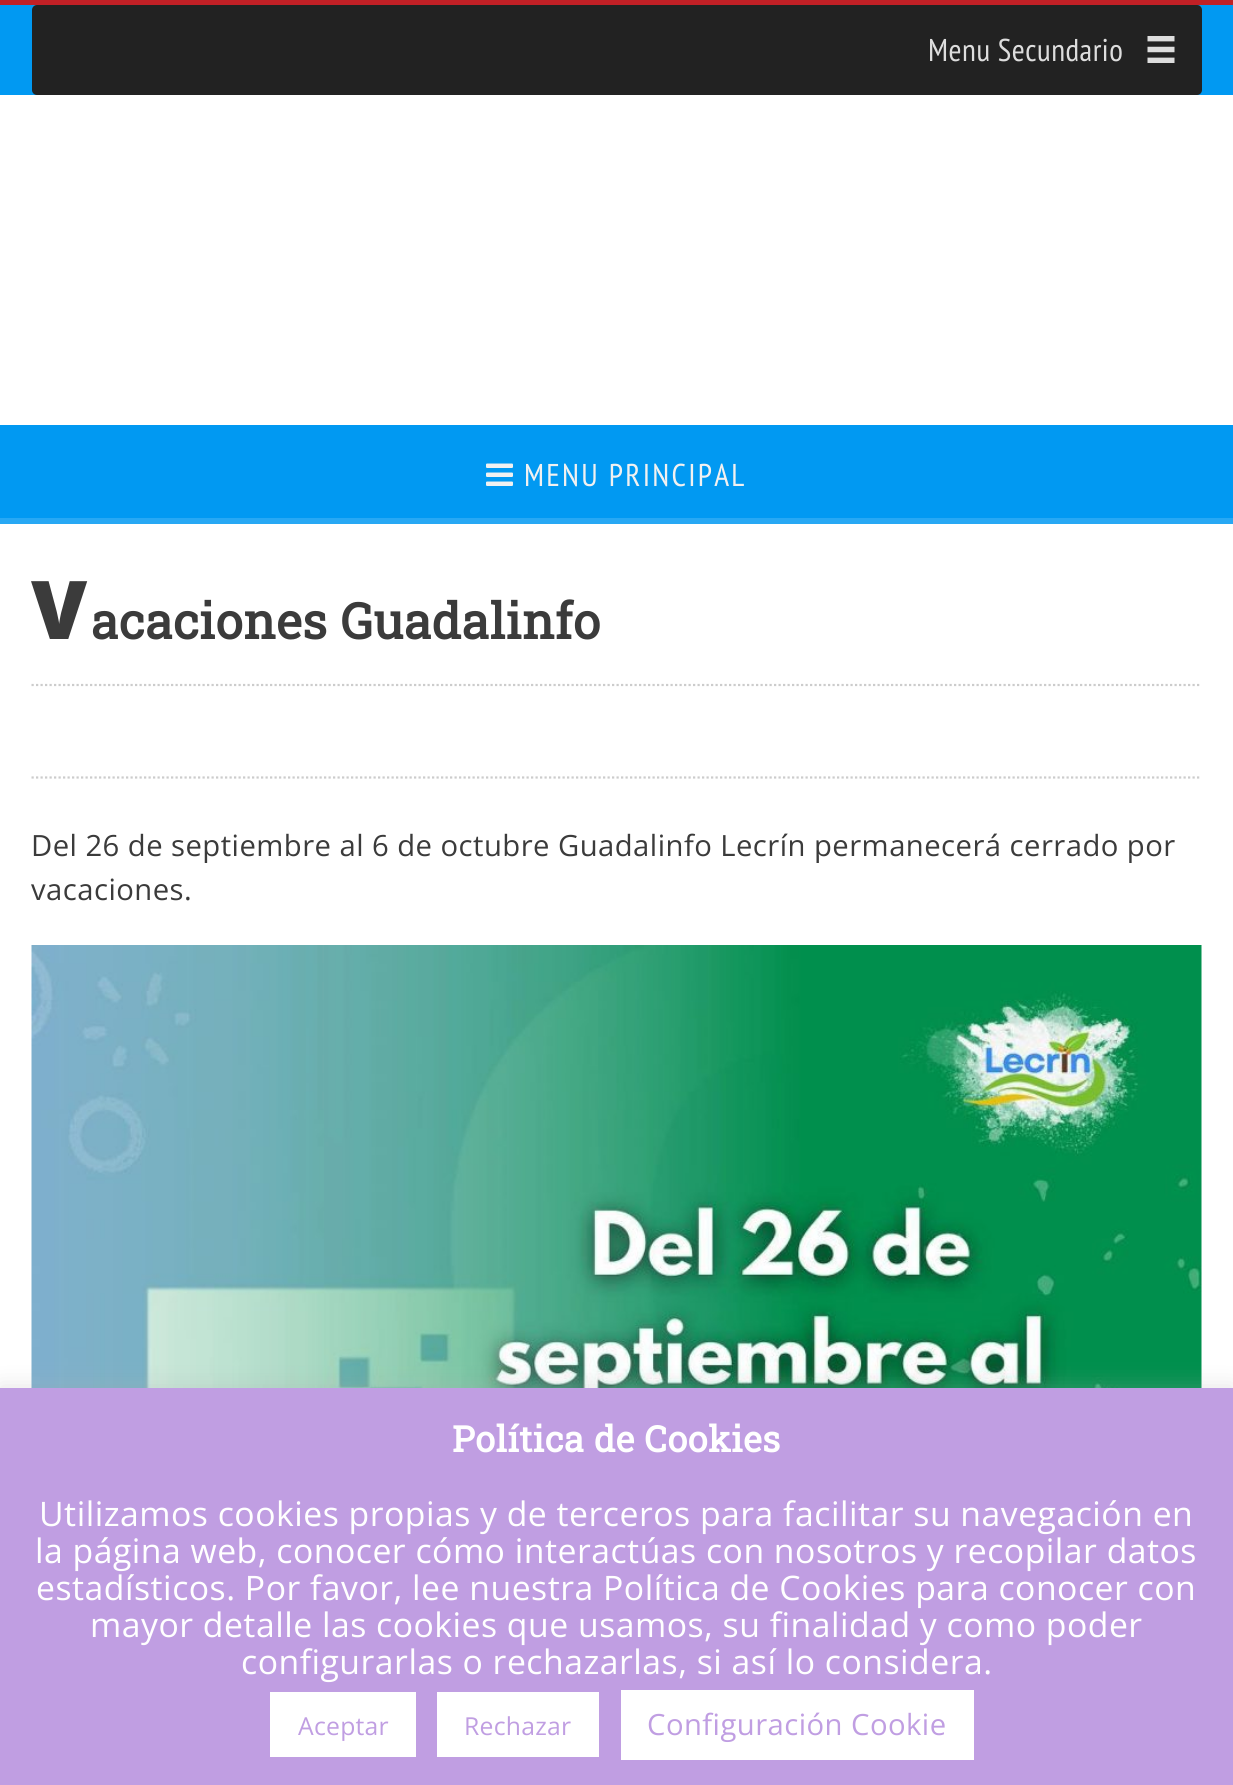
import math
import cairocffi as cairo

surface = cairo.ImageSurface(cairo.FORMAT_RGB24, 1233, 1785)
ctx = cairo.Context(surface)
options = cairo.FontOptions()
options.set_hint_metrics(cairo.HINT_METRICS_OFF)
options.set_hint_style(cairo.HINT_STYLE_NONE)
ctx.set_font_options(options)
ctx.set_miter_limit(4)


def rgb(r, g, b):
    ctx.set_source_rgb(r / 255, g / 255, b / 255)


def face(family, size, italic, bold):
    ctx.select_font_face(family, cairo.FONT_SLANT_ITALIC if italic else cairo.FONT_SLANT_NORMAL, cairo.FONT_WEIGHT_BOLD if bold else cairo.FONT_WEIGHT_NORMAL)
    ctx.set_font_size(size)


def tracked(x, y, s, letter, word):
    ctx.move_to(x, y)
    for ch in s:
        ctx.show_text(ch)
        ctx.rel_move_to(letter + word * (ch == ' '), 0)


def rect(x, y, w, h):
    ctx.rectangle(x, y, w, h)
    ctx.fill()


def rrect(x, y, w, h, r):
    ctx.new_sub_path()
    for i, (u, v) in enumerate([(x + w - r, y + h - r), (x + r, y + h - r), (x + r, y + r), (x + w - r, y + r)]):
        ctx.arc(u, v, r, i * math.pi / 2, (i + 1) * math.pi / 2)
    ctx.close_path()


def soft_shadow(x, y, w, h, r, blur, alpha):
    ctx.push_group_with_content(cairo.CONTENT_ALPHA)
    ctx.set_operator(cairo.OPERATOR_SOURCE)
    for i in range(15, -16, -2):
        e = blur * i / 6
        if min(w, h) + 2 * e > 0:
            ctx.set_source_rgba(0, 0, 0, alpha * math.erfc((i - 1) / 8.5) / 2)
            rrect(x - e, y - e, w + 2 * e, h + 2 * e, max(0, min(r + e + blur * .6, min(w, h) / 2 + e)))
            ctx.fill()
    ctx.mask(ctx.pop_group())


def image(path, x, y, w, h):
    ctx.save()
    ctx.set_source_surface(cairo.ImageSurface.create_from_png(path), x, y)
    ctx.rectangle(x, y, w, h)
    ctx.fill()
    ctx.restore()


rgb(255, 255, 255)
ctx.paint()
rgb(1, 153, 242)
rect(0, 5, 1233, 90)
rgb(193, 32, 38)
rect(0, 0, 1233, 5)
rgb(34, 34, 34)
rrect(32, 5, 1170, 90, 5)
ctx.fill()
face('PT Sans Narrow', 31.5, 0, 0)
rgb(221, 221, 221)
tracked(928, 61, 'Menu Secundario', 0.5, 0)
image('image0.png', 1147, 36, 28, 27)
rgb(1, 153, 242)
rect(0, 425, 1233, 93)
rgb(39, 168, 244)
rect(0, 518, 1233, 6)
image('image1.png', 486, 463, 27, 23)
rgb(241, 241, 241)
tracked(524, 486, 'MENU PRINCIPAL', 2.25, 0)
face('Noto Sans Black', 81, 0, 0)
rgb(59, 59, 59)
tracked(31, 639, 'V', 0.5, 0)
face('Roboto Slab', 49.5, 0, 1)
tracked(91, 639, 'acaciones Guadalinfo', 0.5, 0)
ctx.new_path()
ctx.move_to(31.5, 685)
ctx.line_to(1201.5, 685)
rgb(204, 204, 204)
ctx.set_line_width(2.2)
ctx.set_dash([2.25, 2.25])
ctx.stroke()
ctx.new_path()
ctx.move_to(31.5, 777.5)
ctx.line_to(1201.5, 777.5)
ctx.stroke()
face('Open Sans', 29.25, 0, 0)
rgb(59, 59, 59)
tracked(31, 856, 'Del 26 de septiembre al 6 de octubre Guadalinfo Lecrín permanecerá cerrado por', 0.45, 0)
tracked(31, 900, 'vacaciones.', 0.45, 0)
image('image2.png', 31, 945, 1171, 443)
rgb(172, 171, 171)
soft_shadow(0, 1386, 1233, 398, 0, 11, 0.3)
rgb(192, 158, 226)
rect(0, 1388, 1233, 397)
face('Roboto Slab', 36, 0, 1)
rgb(255, 255, 255)
tracked(452, 1452, 'Política de Cookies', 0.5, 0)
face('Open Sans', 33.75, 0, 0)
tracked(39, 1526, 'Utilizamos cookies propias y de terceros para facilitar su navegación en', 0.5, 0)
tracked(35, 1563, 'la página web, conocer cómo interactúas con nosotros y recopilar datos', 0.5, 0)
tracked(36, 1600, 'estadísticos. Por favor, lee nuestra Política de Cookies para conocer con', 0.5, 0)
tracked(90, 1637, 'mayor detalle las cookies que usamos, su finalidad y como poder', 0.5, 0)
tracked(241, 1674, 'configurarlas o rechazarlas, si así lo considera.', 0.5, 0)
rect(270, 1692, 146, 65)
face('Open Sans', 24.75, 0, 0)
rgb(192, 158, 226)
tracked(298, 1735, 'Aceptar', 0.25, 0)
rgb(255, 255, 255)
rect(437, 1692, 162, 65)
rgb(192, 158, 226)
tracked(464, 1735, 'Rechazar', 0.25, 0)
rgb(255, 255, 255)
rect(621, 1690, 353, 70)
face('Open Sans', 29.25, 0, 0)
rgb(192, 158, 226)
tracked(647, 1735, 'Configuración Cookie', 0.45, 0)
surface.write_to_png('render.png')
